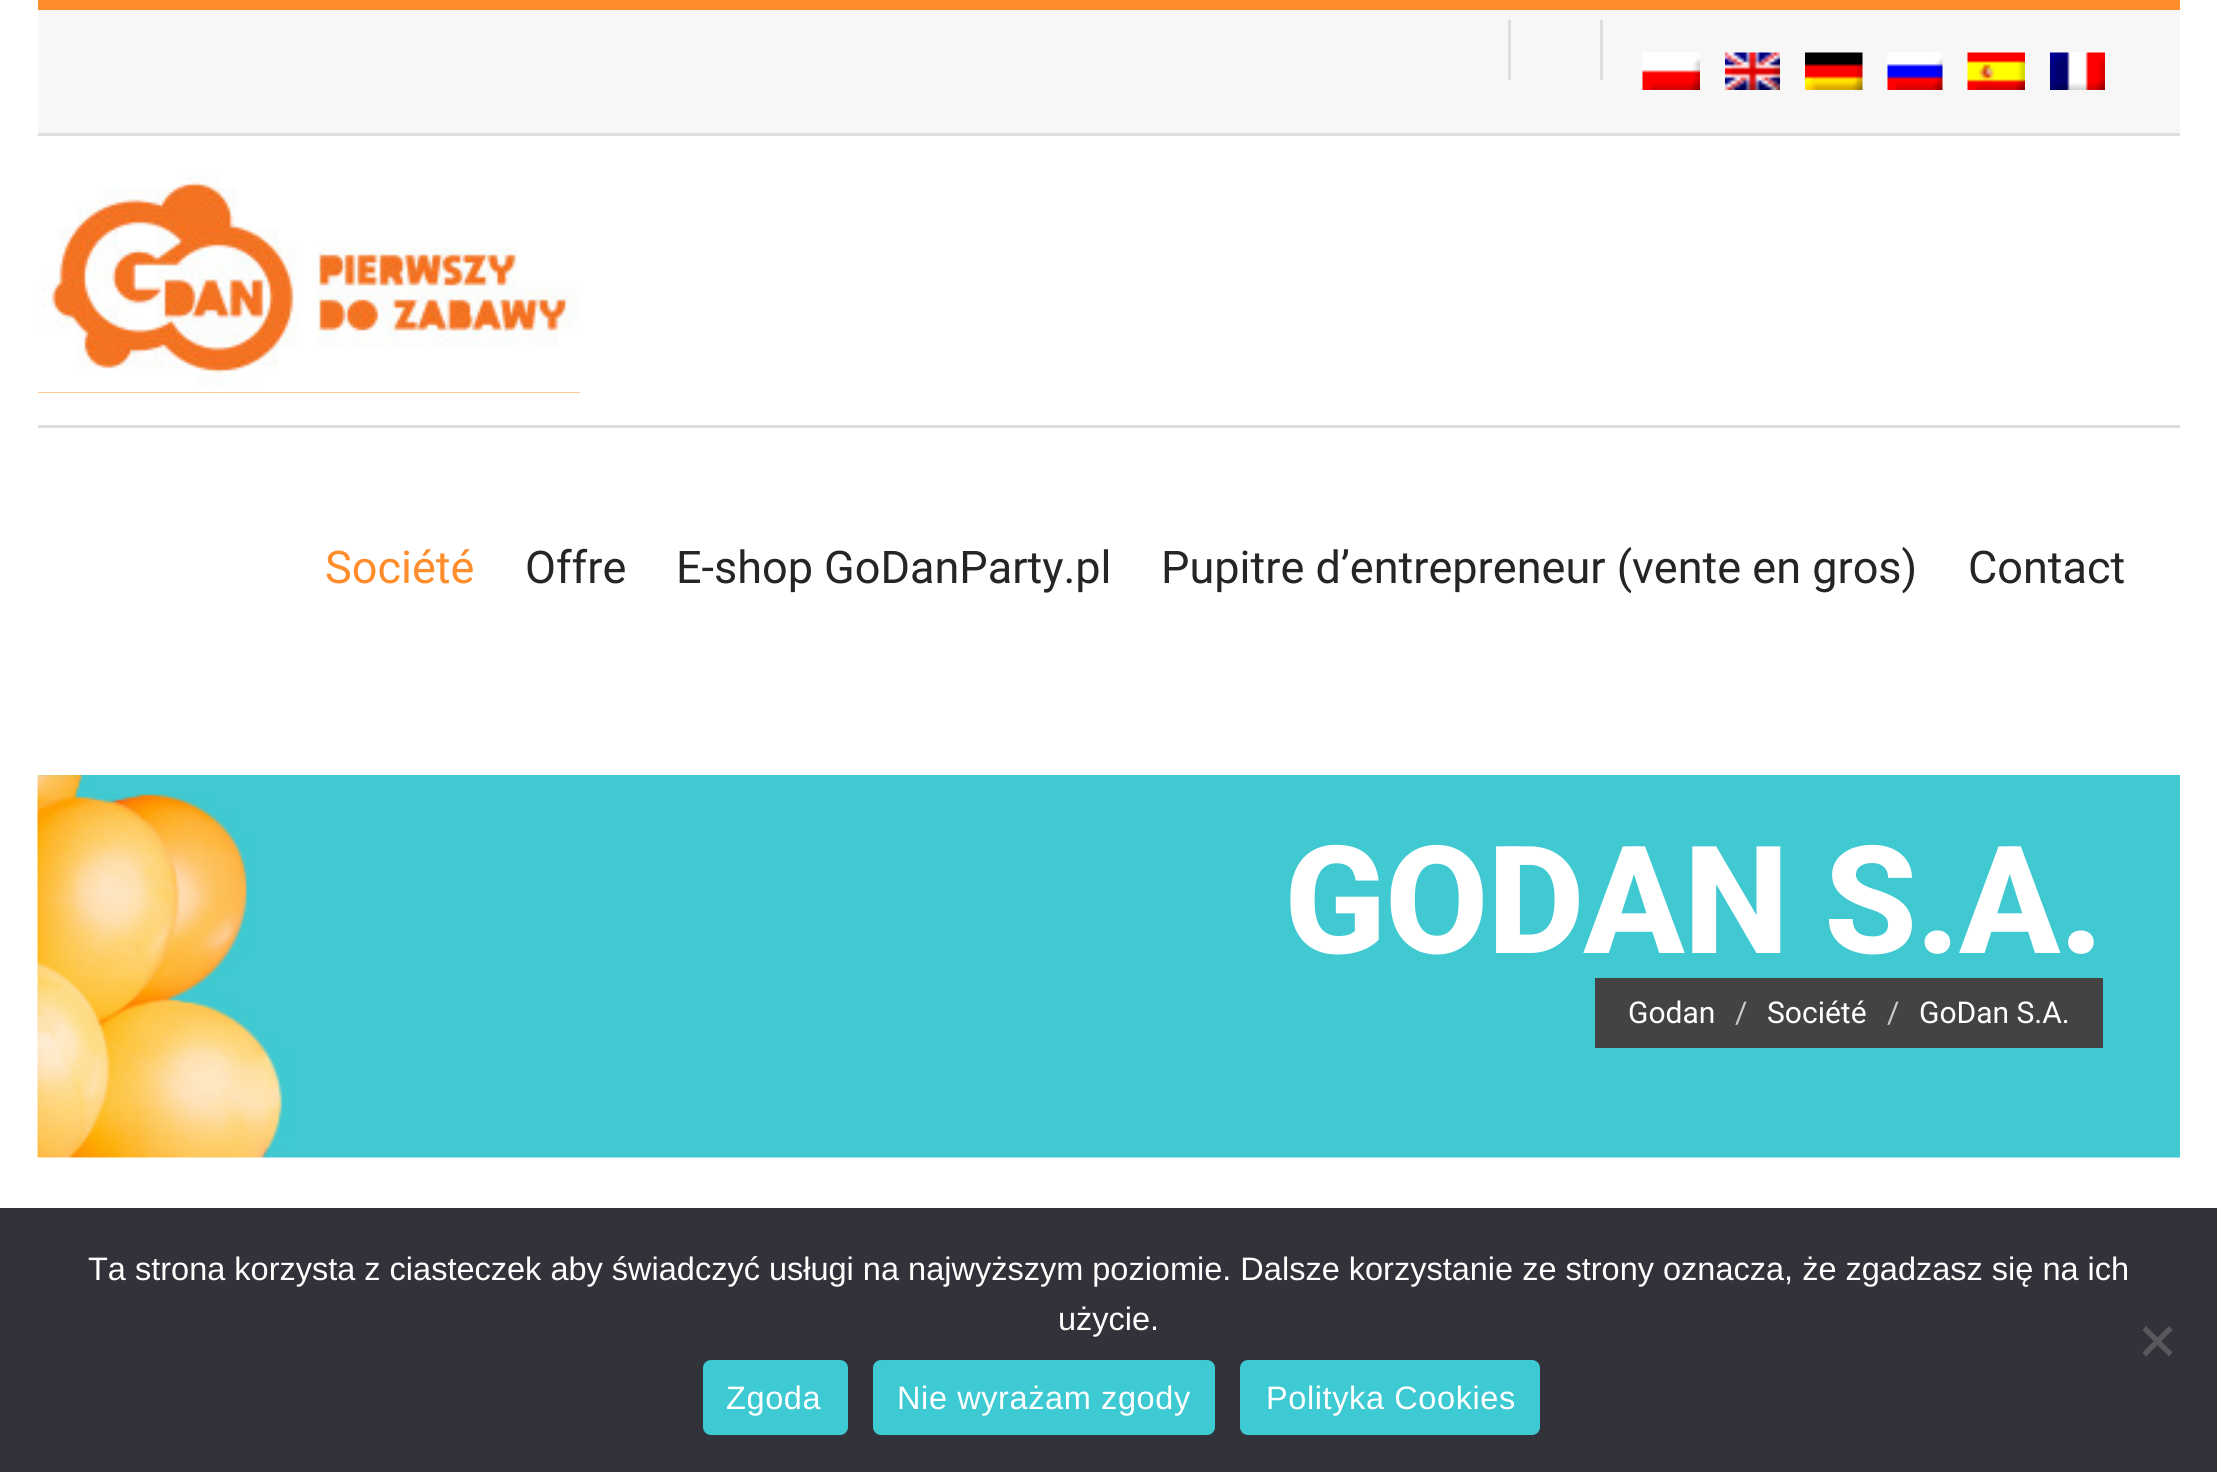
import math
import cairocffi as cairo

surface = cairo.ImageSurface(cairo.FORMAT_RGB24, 2217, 1472)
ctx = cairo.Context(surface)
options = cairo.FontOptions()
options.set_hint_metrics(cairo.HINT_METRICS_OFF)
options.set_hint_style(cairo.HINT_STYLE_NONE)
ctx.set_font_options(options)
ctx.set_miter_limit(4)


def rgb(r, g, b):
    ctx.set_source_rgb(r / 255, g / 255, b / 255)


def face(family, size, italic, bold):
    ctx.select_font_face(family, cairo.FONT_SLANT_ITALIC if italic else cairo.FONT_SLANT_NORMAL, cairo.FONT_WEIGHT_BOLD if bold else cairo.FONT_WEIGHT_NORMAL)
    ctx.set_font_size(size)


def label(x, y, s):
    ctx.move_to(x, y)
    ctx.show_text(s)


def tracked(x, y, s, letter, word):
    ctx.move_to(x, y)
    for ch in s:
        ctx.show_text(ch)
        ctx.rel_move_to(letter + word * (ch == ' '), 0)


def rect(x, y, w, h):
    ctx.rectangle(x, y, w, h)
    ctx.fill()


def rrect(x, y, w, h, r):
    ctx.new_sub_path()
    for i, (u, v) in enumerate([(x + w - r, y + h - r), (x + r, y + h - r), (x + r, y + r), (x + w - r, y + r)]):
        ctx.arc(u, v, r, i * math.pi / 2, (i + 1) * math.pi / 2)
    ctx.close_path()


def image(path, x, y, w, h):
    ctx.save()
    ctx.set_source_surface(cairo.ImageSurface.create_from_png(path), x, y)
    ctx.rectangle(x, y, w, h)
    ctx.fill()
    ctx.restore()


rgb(255, 255, 255)
ctx.paint()
rgb(247, 247, 247)
rect(38, 10, 2142, 123)
rgb(255, 141, 44)
rect(38, 0, 2142, 10)
rgb(222, 222, 222)
rect(38, 133, 2142, 3)
rect(1600, 20, 3, 60)
rect(1508, 20, 3, 60)
image('image0.png', 1642, 52, 58, 38)
image('image1.png', 1725, 52, 55, 38)
image('image2.png', 1805, 52, 58, 38)
image('image3.png', 1887, 52, 56, 38)
image('image4.png', 1967, 52, 58, 38)
image('image5.png', 2050, 52, 55, 38)
rect(38, 425, 2142, 3)
rgb(255, 141, 44)
rect(38, 392, 542, 1)
image('image6.png', 38, 168, 542, 225)
face('Roboto', 45, 0, 0)
label(325, 583, 'Société')
rgb(37, 37, 37)
label(525, 583, 'Offre')
label(676, 583, 'E-shop GoDanParty.pl')
label(1161, 583, 'Pupitre d’entrepreneur (vente en gros)')
label(1968, 583, 'Contact')
image('image7.png', 37, 775, 2143, 383)
face('Roboto ExtraBold', 150, 0, 0)
rgb(255, 255, 255)
tracked(1284, 953, 'GODAN S.A.', -1.25, 0)
rgb(67, 67, 67)
rect(1595, 978, 508, 70)
face('Roboto', 30, 0, 0)
rgb(255, 255, 255)
label(1628, 1023, 'Godan')
rgb(204, 204, 204)
label(1735, 1023, '/')
rgb(255, 255, 255)
label(1767, 1023, 'Société')
rgb(204, 204, 204)
label(1887, 1023, '/')
rgb(255, 255, 255)
label(1919, 1023, 'GoDan S.A.')
rgb(50, 50, 58)
rect(0, 1208, 2217, 264)
face('Liberation Sans', 32.5, 0, 0)
rgb(255, 255, 255)
label(88, 1280, 'Ta strona korzysta z ciasteczek aby świadczyć usługi na najwyższym poziomie. Dalsze korzystanie ze strony oznacza, że zgadzasz się na ich')
label(1058, 1330, 'użycie.')
rgb(89, 89, 93)
ctx.new_path()
ctx.move_to(2169, 1326)
ctx.line_to(2172.5, 1330)
ctx.line_to(2146, 1356.5)
ctx.line_to(2142.5, 1352.5)
ctx.close_path()
ctx.fill()
ctx.new_path()
ctx.move_to(2142.5, 1330)
ctx.line_to(2146, 1326)
ctx.line_to(2172.5, 1352.5)
ctx.line_to(2169, 1356.5)
ctx.close_path()
ctx.fill()
rgb(61, 202, 211)
rrect(703, 1360, 145, 75, 8)
ctx.fill()
rgb(255, 255, 255)
tracked(726, 1409, 'Zgoda', 0.6, 0)
rgb(61, 202, 211)
rrect(873, 1360, 342, 75, 8)
ctx.fill()
rgb(255, 255, 255)
tracked(897, 1409, 'Nie wyrażam zgody', 0.6, 0)
rgb(61, 202, 211)
rrect(1240, 1360, 300, 75, 8)
ctx.fill()
rgb(255, 255, 255)
tracked(1266, 1409, 'Polityka Cookies', 0.6, 0)
surface.write_to_png('render.png')
